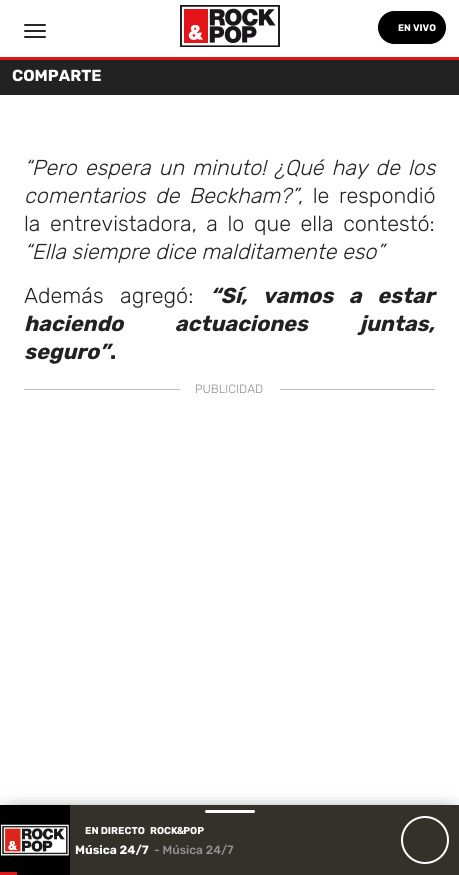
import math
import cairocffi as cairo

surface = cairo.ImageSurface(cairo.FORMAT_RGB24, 459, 875)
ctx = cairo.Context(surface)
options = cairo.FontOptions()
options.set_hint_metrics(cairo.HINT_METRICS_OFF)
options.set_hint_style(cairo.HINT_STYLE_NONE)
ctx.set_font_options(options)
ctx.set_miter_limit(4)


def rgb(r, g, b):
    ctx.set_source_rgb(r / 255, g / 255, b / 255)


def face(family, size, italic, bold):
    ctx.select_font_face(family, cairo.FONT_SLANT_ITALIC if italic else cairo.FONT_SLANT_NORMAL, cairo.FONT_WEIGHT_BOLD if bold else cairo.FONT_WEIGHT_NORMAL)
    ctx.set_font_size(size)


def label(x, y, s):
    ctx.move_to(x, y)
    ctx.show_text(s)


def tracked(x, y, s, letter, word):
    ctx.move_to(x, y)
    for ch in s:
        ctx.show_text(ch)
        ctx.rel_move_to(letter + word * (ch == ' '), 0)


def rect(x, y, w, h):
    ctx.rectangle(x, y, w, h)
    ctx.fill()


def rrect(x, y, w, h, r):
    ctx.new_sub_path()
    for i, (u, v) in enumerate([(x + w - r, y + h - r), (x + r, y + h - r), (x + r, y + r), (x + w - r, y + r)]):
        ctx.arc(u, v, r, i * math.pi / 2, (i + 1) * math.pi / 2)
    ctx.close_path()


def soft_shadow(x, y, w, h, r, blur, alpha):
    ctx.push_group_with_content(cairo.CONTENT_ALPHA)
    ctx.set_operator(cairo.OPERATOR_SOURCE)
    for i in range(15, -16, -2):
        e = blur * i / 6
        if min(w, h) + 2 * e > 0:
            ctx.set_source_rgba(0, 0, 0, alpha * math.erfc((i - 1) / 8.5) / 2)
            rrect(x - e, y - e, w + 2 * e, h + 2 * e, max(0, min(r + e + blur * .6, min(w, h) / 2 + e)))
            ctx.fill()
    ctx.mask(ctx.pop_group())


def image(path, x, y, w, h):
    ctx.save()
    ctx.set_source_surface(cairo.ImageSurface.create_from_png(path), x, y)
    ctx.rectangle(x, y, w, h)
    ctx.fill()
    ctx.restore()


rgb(255, 255, 255)
ctx.paint()
rgb(226, 22, 24)
rect(0, 57, 459, 3)
rgb(38, 38, 38)
rrect(24, 24, 22, 2, 1)
ctx.fill()
rrect(24, 30, 22, 2, 1)
ctx.fill()
rrect(24, 36, 22, 2, 1)
ctx.fill()
image('image0.png', 180, 5, 100, 42)
rgb(0, 0, 0)
rrect(377.5, 10.5, 69, 34, 17)
ctx.fill_preserve()
rgb(255, 255, 255)
ctx.set_line_width(1)
ctx.stroke()
face('Rubik', 9.5, 0, 1)
label(398, 31, 'EN VIVO')
rgb(34, 34, 34)
rect(0, 60, 459, 35)
face('Rubik', 16, 0, 1)
rgb(255, 255, 255)
label(12, 81, 'COMPARTE')
face('Rubik Light', 21.6, 1, 0)
rgb(34, 34, 34)
tracked(24, 175, '“Pero espera un minuto! ¿Qué hay de los', 0, 2.5)
tracked(24, 203, 'comentarios de Beckham?”', 0, 4)
face('Rubik Light', 21.6, 0, 0)
tracked(298, 203, ', le respondió', 0, 4)
tracked(24, 231, 'la entrevistadora, a lo que ella contestó:', 0, 4)
face('Rubik Light', 21.6, 1, 0)
label(24, 259, '“Ella siempre dice malditamente eso”')
face('Rubik Light', 21.6, 0, 0)
tracked(24, 303, 'Además agregó:', 0, 11)
face('Rubik', 21.6, 1, 1)
tracked(210, 303, '“Sí, vamos a estar', 0, 11)
tracked(24, 331, 'haciendo actuaciones juntas,', 0, 47)
label(24, 359, 'seguro”')
face('Rubik', 21.6, 0, 1)
label(110, 359, '.')
rgb(189, 190, 203)
rect(24, 389, 411, 1)
rgb(255, 255, 255)
rect(180, 389, 100, 1)
face('Rubik Light', 12, 0, 0)
rgb(140, 141, 151)
label(195, 393, 'PUBLICIDAD')
rgb(0, 0, 0)
soft_shadow(17, 815, 439, 50, 0, 10, 0.5)
soft_shadow(3, 815, 439, 50, 0, 10, 0.5)
rgb(52, 48, 42)
rect(70, 805, 389, 70)
rgb(255, 255, 255)
rrect(205, 810, 50, 3, 1.5)
ctx.fill()
image('image1.png', 0, 805, 70, 70)
face('Rubik', 10, 0, 1)
label(85, 834, 'EN DIRECTO')
tracked(150, 834, 'ROCK & POP', 0, -3)
face('Rubik', 12, 0, 1)
label(75, 854, 'Música 24/7')
face('Rubik Medium', 12, 0, 0)
rgb(147, 147, 147)
label(154, 854, '- Música 24/7')
ctx.new_path()
ctx.arc(425, 840, 23, 0, 2 * math.pi)
rgb(255, 255, 255)
ctx.set_line_width(2)
ctx.stroke()
rgb(224, 25, 26)
rect(0, 872, 17, 3)
surface.write_to_png('render.png')
